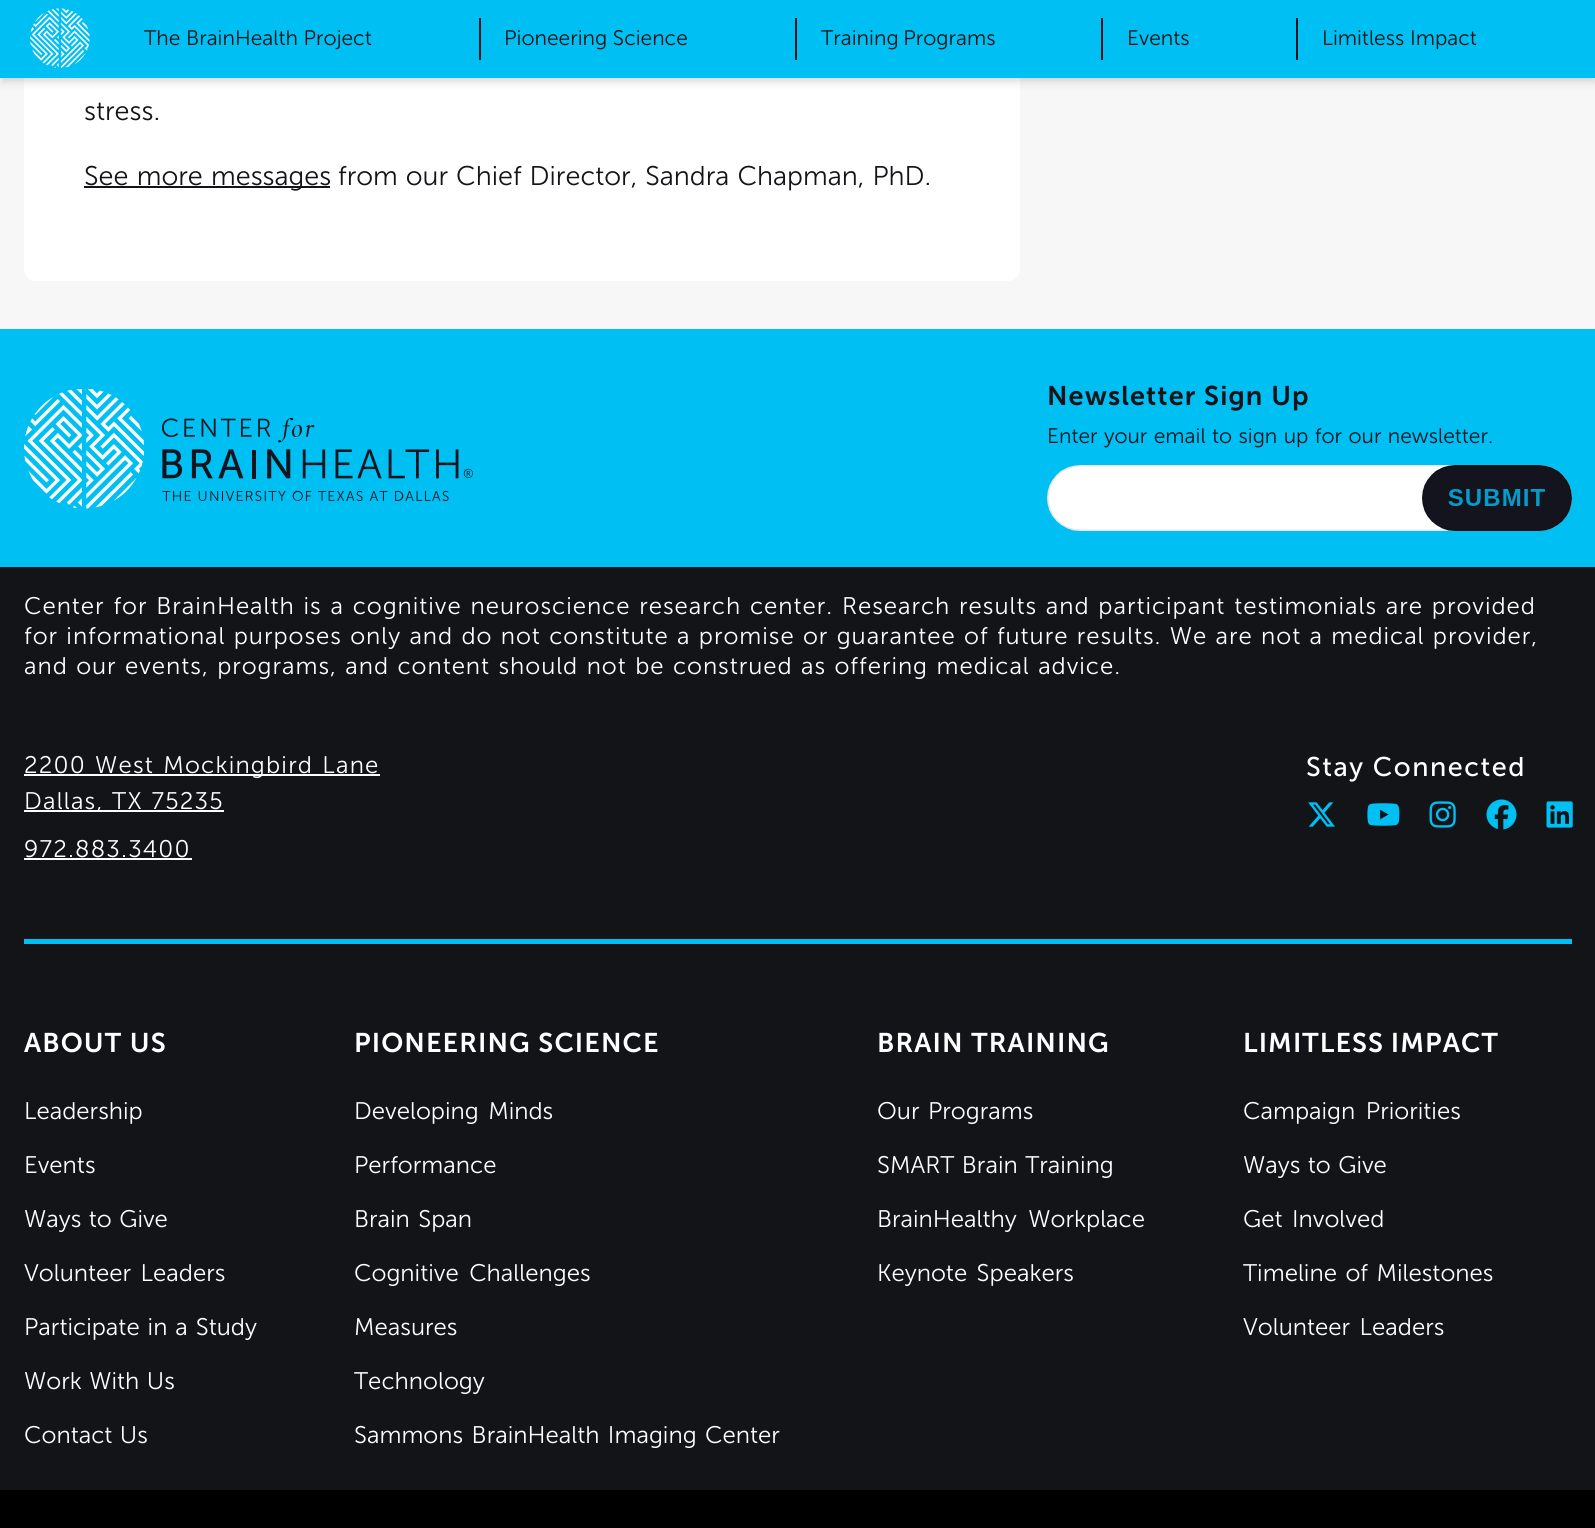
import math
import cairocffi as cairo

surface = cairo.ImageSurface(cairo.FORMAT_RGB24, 1595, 1528)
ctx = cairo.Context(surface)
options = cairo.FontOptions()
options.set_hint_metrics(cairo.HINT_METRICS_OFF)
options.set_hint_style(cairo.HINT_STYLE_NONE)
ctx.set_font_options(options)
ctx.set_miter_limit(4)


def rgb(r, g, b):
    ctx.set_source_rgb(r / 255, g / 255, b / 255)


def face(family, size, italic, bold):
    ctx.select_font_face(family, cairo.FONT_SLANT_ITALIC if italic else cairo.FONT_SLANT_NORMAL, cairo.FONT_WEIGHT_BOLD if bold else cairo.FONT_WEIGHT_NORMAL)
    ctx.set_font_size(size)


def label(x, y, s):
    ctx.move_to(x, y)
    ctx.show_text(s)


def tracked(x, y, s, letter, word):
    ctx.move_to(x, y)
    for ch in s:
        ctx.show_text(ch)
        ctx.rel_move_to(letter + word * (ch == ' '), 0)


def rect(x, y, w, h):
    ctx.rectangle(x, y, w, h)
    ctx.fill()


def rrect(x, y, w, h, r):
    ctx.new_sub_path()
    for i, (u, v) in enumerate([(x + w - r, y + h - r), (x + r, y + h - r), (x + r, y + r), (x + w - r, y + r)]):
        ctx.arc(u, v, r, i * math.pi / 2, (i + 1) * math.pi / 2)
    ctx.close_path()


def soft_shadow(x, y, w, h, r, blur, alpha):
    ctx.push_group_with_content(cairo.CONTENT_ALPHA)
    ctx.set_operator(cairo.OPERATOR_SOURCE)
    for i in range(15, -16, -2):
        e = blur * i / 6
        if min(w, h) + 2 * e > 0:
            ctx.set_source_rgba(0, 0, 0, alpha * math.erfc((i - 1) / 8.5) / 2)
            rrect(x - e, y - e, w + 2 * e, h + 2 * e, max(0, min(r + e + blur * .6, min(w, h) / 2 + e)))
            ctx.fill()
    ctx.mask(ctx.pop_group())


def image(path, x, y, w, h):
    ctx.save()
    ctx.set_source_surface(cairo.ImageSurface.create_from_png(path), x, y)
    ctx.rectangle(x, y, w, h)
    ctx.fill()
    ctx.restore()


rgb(247, 247, 247)
ctx.paint()
rgb(255, 255, 255)
rrect(24, -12, 996, 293, 12)
ctx.fill()
rgb(0, 0, 0)
soft_shadow(2, 5, 1593, 75, 0, 3, 0.06)
soft_shadow(2, 8, 1593, 75, 0, 4.5, 0.1)
rgb(0, 191, 243)
rect(0, 0, 1595, 78)
image('image0.png', 30, 8, 60, 60)
face('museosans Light', 21, 0, 0)
rgb(19, 20, 24)
label(144, 45, 'The BrainHealth Project')
rgb(19, 20, 30)
rect(479, 18, 2, 42)
rgb(19, 20, 24)
label(504, 45, 'Pioneering Science')
rgb(19, 20, 30)
rect(795, 18, 2, 42)
rgb(19, 20, 24)
tracked(821, 45, 'Training Programs', 0, -1)
rgb(19, 20, 30)
rect(1101, 18, 2, 42)
rgb(19, 20, 24)
label(1127, 45, 'Events')
rgb(19, 20, 30)
rect(1296, 18, 2, 42)
rgb(19, 20, 24)
label(1322, 45, 'Limitless Impact')
face('museosans Light', 27, 0, 0)
label(84, 120, 'stress.')
rect(84, 186, 246, 2)
tracked(84, 185, 'See more messages', 0, 1)
tracked(338, 185, 'from our Chief Director, Sandra Chapman, PhD.', 0, 0.75)
rect(0, 567, 1595, 923)
rgb(0, 191, 243)
rect(0, 329, 1595, 238)
image('image1.png', 24, 389, 120, 120)
image('image2.png', 162, 417, 311, 85)
face('museosans SemiBold', 27, 0, 0)
rgb(19, 20, 24)
tracked(1047, 405, 'Newsletter Sign Up', 1.1, 0)
face('museosans Light', 21, 0, 0)
rgb(19, 20, 30)
tracked(1047, 443, 'Enter your email to sign up for our newsletter.', 0, 0.75)
image('image3.png', 1047, 465, 525, 66)
face('museosans Light', 24, 0, 0)
rgb(255, 255, 255)
tracked(24, 614, 'Center for BrainHealth is a cognitive neuroscience research center. Research results and participant testimonials are provided', 0.96, 1.4)
tracked(24, 644, 'for informational purposes only and do not constitute a promise or guarantee of future results. We are not a medical provider,', 0.96, 0.9)
tracked(24, 674, 'and our events, programs, and content should not be construed as offering medical advice.', 0.96, 1)
rect(24, 774, 356, 2)
tracked(24, 773, '2200 West Mockingbird Lane', 1.2, 1.5)
rect(24, 810, 200, 2)
tracked(24, 809, 'Dallas, TX 75235', 1.2, 1)
tracked(24, 857, '972.883.3400', 1.2, 0)
rect(24, 858, 168, 2)
face('museosans', 27, 0, 0)
tracked(1306, 776, 'Stay Connected', 1.5, 0)
image('image4.png', 1308, 802, 27, 25)
image('image5.png', 1367, 803, 33, 23)
image('image6.png', 1429, 801, 27, 27)
image('image7.png', 1486, 799, 31, 31)
image('image8.png', 1546, 801, 27, 27)
rgb(0, 191, 243)
rect(24, 939, 1548, 5)
face('museosans SemiBold', 27, 0, 0)
rgb(255, 255, 255)
tracked(24, 1052, 'ABOUT US', 1.1, 0)
face('museosans Light', 24, 0, 0)
label(24, 1119, 'Leadership')
label(24, 1173, 'Events')
tracked(24, 1227, 'Ways to Give', 0, 1)
tracked(24, 1281, 'Volunteer Leaders', 0, 3)
tracked(24, 1335, 'Participate in a Study', 0, 1.5)
tracked(24, 1389, 'Work With Us', 0, 1)
tracked(24, 1443, 'Contact Us', 0, 1)
face('museosans SemiBold', 27, 0, 0)
tracked(354, 1052, 'PIONEERING SCIENCE', 1.1, 0)
face('museosans Light', 24, 0, 0)
tracked(354, 1119, 'Developing Minds', 0, 3)
label(354, 1173, 'Performance')
tracked(354, 1227, 'Brain Span', 0, 2)
tracked(354, 1281, 'Cognitive Challenges', 0, 4)
label(354, 1335, 'Measures')
label(354, 1389, 'Technology')
tracked(354, 1443, 'Sammons BrainHealth Imaging Center', 0, 2)
face('museosans SemiBold', 27, 0, 0)
tracked(877, 1052, 'BRAIN TRAINING', 1.1, 0)
face('museosans Light', 24, 0, 0)
tracked(877, 1119, 'Our Programs', 0, 2)
tracked(877, 1173, 'SMART Brain Training', 0, 1)
tracked(877, 1227, 'BrainHealthy Workplace', 0, 5)
tracked(877, 1281, 'Keynote Speakers', 0, 3)
face('museosans SemiBold', 27, 0, 0)
tracked(1243, 1052, 'LIMITLESS IMPACT', 1.1, -1)
face('museosans Light', 24, 0, 0)
tracked(1243, 1119, 'Campaign Priorities', 0, 4)
tracked(1243, 1173, 'Ways to Give', 0, 1)
tracked(1243, 1227, 'Get Involved', 0, 3)
tracked(1243, 1281, 'Timeline of Milestones', 0, 2)
tracked(1243, 1335, 'Volunteer Leaders', 0, 3)
rgb(0, 0, 0)
rect(0, 1490, 1595, 38)
surface.write_to_png('render.png')
